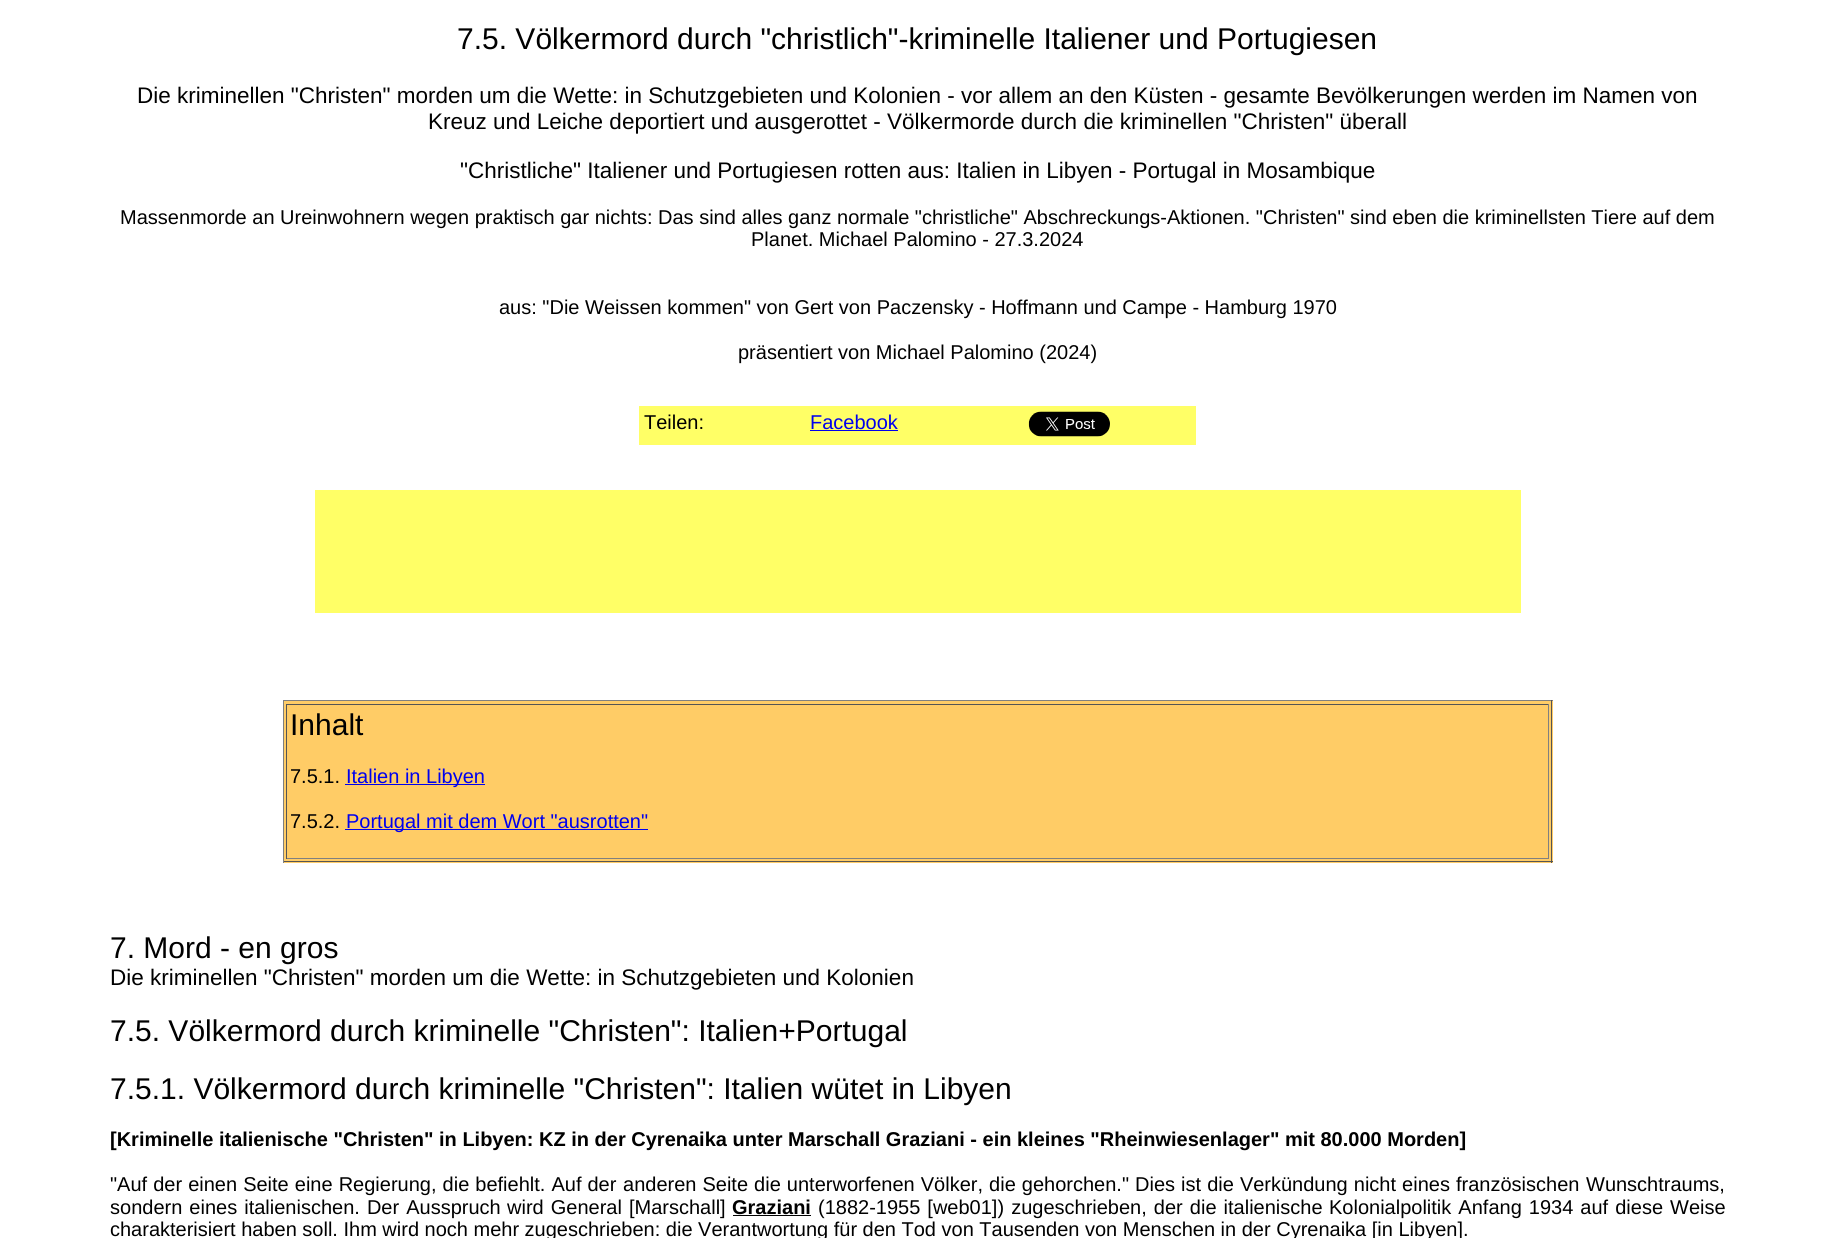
import math
import cairocffi as cairo

surface = cairo.ImageSurface(cairo.FORMAT_RGB24, 1835, 1238)
ctx = cairo.Context(surface)
options = cairo.FontOptions()
options.set_hint_metrics(cairo.HINT_METRICS_OFF)
options.set_hint_style(cairo.HINT_STYLE_NONE)
ctx.set_font_options(options)
ctx.set_miter_limit(4)


def rgb(r, g, b):
    ctx.set_source_rgb(r / 255, g / 255, b / 255)


def face(family, size, italic, bold):
    ctx.select_font_face(family, cairo.FONT_SLANT_ITALIC if italic else cairo.FONT_SLANT_NORMAL, cairo.FONT_WEIGHT_BOLD if bold else cairo.FONT_WEIGHT_NORMAL)
    ctx.set_font_size(size)


def label(x, y, s):
    ctx.move_to(x, y)
    ctx.show_text(s)


def tracked(x, y, s, letter, word):
    ctx.move_to(x, y)
    for ch in s:
        ctx.show_text(ch)
        ctx.rel_move_to(letter + word * (ch == ' '), 0)


def rect(x, y, w, h):
    ctx.rectangle(x, y, w, h)
    ctx.fill()


def image(path, x, y, w, h):
    ctx.save()
    ctx.set_source_surface(cairo.ImageSurface.create_from_png(path), x, y)
    ctx.rectangle(x, y, w, h)
    ctx.fill()
    ctx.restore()


rgb(255, 255, 255)
ctx.paint()
face('Liberation Sans', 30, 0, 0)
rgb(0, 0, 0)
label(457, 49, '7.5. Völkermord durch "christlich"-kriminelle Italiener und Portugiesen')
face('Liberation Sans', 22.5, 0, 0)
label(137, 103, 'Die kriminellen "Christen" morden um die Wette: in Schutzgebieten und Kolonien - vor allem an den Küsten - gesamte Bevölkerungen werden im Namen von')
label(428, 129, 'Kreuz und Leiche deportiert und ausgerottet - Völkermorde durch die kriminellen "Christen" überall')
label(460, 178, '"Christliche" Italiener und Portugiesen rotten aus: Italien in Libyen - Portugal in Mosambique')
face('Liberation Sans', 20, 0, 0)
label(120, 224, 'Massenmorde an Ureinwohnern wegen praktisch gar nichts: Das sind alles ganz normale "christliche" Abschreckungs-Aktionen. "Christen" sind eben die kriminellsten Tiere auf dem')
label(751, 246, 'Planet. Michael Palomino - 27.3.2024')
label(499, 314, 'aus: "Die Weissen kommen" von Gert von Paczensky - Hoffmann und Campe - Hamburg 1970')
label(738, 359, 'präsentiert von Michael Palomino (2024)')
rgb(255, 255, 102)
rect(639, 406, 557, 39)
rgb(0, 0, 0)
label(644, 429, 'Teilen:')
rgb(0, 0, 238)
label(810, 429, 'Facebook')
rect(810, 430, 88, 1)
image('image0.png', 1028, 411, 82, 26)
rgb(255, 255, 102)
rect(315, 490, 1206, 123)
rgb(255, 204, 102)
rect(284, 701, 1269, 162)
rgb(128, 128, 128)
rect(283, 700, 1270, 1)
rgb(85, 85, 85)
rect(1551, 700, 1, 163)
rect(283, 861, 1270, 1)
rgb(128, 128, 128)
rect(283, 700, 1, 163)
rgb(85, 85, 85)
rect(286, 704, 1263, 1)
rgb(128, 128, 128)
rect(1548, 704, 1, 155)
rect(286, 858, 1263, 1)
rgb(85, 85, 85)
rect(286, 704, 1, 155)
face('Liberation Sans', 30, 0, 0)
rgb(0, 0, 0)
label(290, 735, 'Inhalt')
face('Liberation Sans', 20, 0, 0)
label(290, 783, '7.5.1.')
rgb(0, 0, 238)
rect(345, 784, 140, 1)
label(346, 783, 'Italien in Libyen')
rgb(0, 0, 0)
label(290, 828, '7.5.2.')
rgb(0, 0, 238)
rect(345, 829, 303, 1)
label(346, 828, 'Portugal mit dem Wort "ausrotten"')
face('Liberation Sans', 30, 0, 0)
rgb(0, 0, 0)
label(110, 958, '7. Mord - en gros')
face('Liberation Sans', 22.5, 0, 0)
label(110, 985, 'Die kriminellen "Christen" morden um die Wette: in Schutzgebieten und Kolonien')
face('Liberation Sans', 30, 0, 0)
label(110, 1041, '7.5. Völkermord durch kriminelle "Christen": Italien+Portugal')
label(110, 1099, '7.5.1. Völkermord durch kriminelle "Christen": Italien wütet in Libyen')
face('Liberation Sans', 20, 0, 1)
label(110, 1146, '[Kriminelle italienische "Christen" in Libyen: KZ in der Cyrenaika unter Marschall Graziani - ein kleines "Rheinwiesenlager" mit 80.000 Morden]')
face('Liberation Sans', 20, 0, 0)
tracked(110, 1191, '"Auf der einen Seite eine Regierung, die befiehlt. Auf der', 0, 0.5)
tracked(623, 1191, 'anderen Seite die unterworfenen Völker, die gehorchen."', 0, 0.5)
tracked(1135, 1191, 'Dies ist die Verkündung nicht eines französischen', 0, 0.5)
label(1586, 1191, 'Wunschtraums,')
tracked(110, 1214, 'sondern eines italienischen. Der Ausspruch', 0, 1.5)
tracked(507, 1214, 'wird General [Marschall]', 0, 1.5)
face('Liberation Sans', 20, 0, 1)
label(732, 1214, 'Graziani')
rect(733, 1215, 78, 1)
face('Liberation Sans', 20, 0, 0)
tracked(818, 1214, '(1882-1955 [web01]) zugeschrieben, der die italienische', 0, 1.5)
tracked(1329, 1214, 'Kolonialpolitik Anfang 1934 auf diese Weise', 0, 1.5)
label(110, 1236, 'charakterisiert haben soll. Ihm wird noch mehr zugeschrieben: die Verantwortung für den Tod von Tausenden von Menschen in der Cyrenaika [in Libyen].')
surface.write_to_png('render.png')
